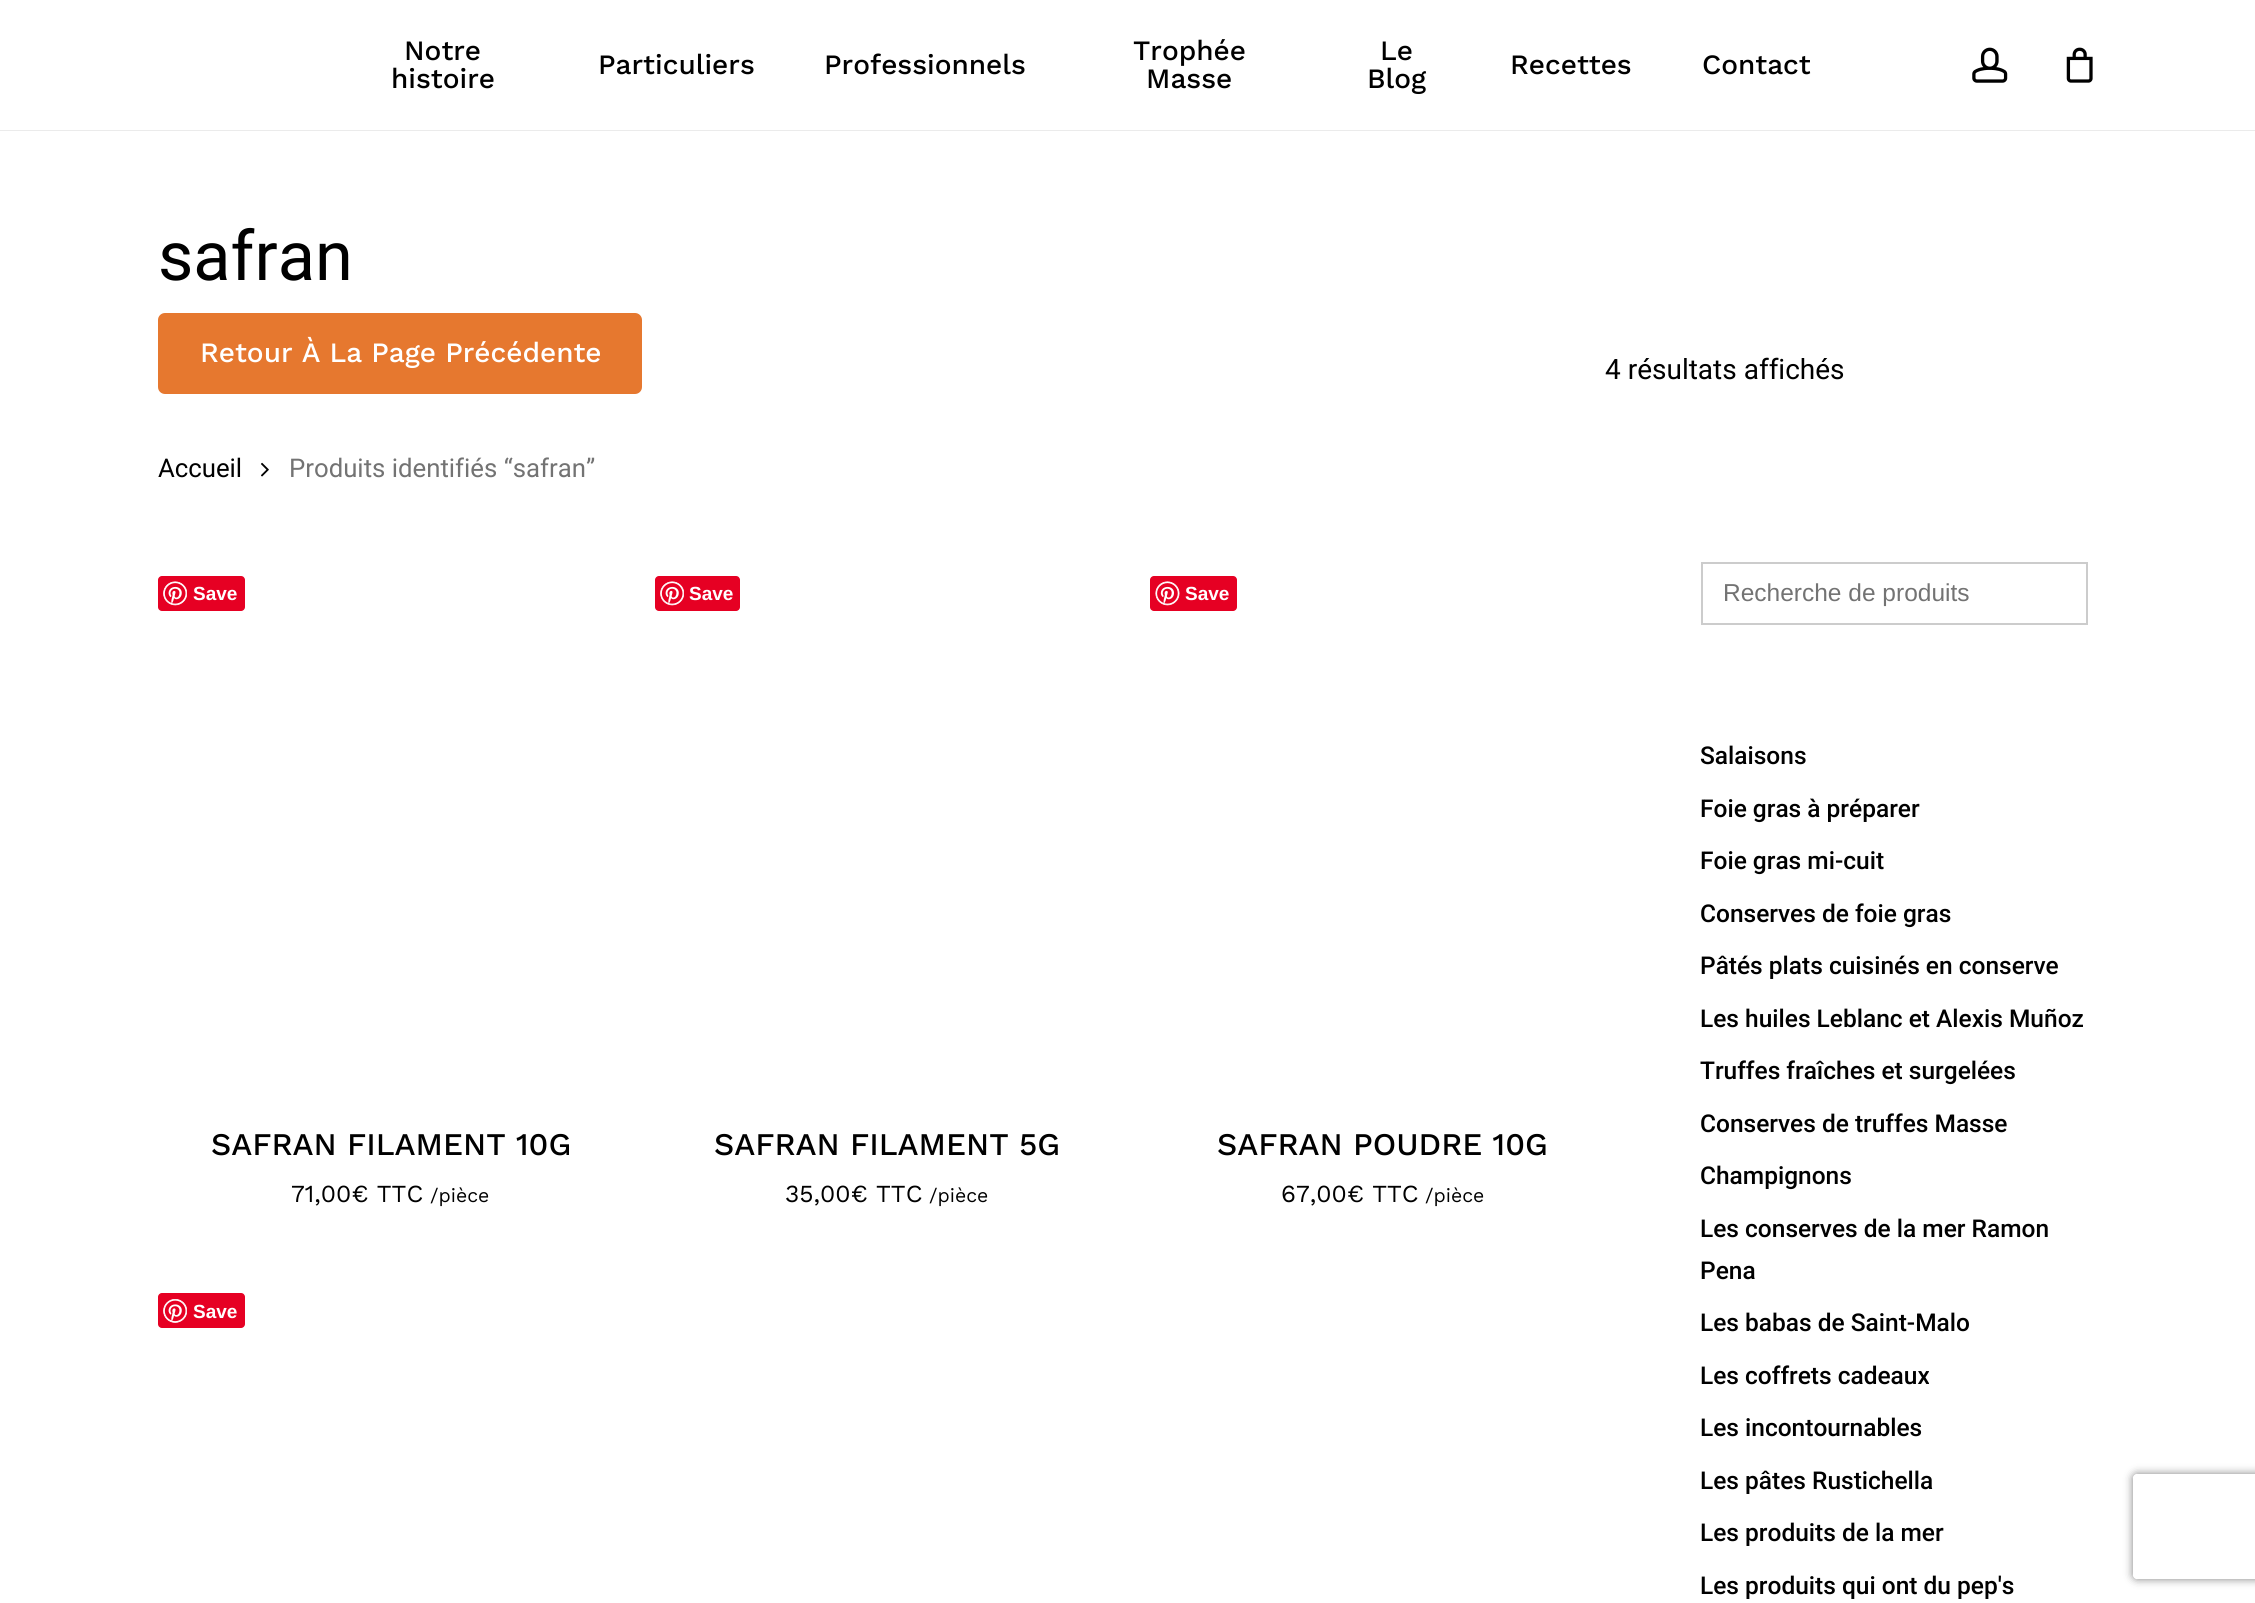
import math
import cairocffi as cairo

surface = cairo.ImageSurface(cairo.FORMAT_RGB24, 2255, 1603)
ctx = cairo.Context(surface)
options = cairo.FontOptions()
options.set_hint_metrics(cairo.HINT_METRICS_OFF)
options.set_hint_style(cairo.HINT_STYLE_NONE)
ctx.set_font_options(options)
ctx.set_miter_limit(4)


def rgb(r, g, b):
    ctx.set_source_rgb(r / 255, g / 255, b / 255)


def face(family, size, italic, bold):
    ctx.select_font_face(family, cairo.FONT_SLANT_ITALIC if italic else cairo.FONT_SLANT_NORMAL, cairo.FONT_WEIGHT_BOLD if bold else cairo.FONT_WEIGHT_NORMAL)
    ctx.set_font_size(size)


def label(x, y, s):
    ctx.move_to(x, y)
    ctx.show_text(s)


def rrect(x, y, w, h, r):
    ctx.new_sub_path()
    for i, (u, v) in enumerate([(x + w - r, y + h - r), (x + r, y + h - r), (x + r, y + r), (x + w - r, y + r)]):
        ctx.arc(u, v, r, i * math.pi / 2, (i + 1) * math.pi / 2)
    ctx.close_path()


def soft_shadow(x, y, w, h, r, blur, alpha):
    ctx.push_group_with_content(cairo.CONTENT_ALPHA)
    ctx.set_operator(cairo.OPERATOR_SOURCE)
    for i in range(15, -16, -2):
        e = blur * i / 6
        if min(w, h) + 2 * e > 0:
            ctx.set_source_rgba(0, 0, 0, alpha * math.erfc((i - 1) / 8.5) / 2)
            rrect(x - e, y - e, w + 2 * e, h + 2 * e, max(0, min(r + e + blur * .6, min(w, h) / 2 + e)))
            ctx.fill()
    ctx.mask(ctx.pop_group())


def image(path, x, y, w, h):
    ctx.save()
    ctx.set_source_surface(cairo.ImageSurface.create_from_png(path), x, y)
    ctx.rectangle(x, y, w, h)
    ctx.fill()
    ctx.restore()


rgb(255, 255, 255)
ctx.paint()
rgb(235, 235, 235)
ctx.new_path()
ctx.move_to(0, 130)
ctx.line_to(0, 131)
ctx.line_to(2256, 131)
ctx.line_to(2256, 2)
ctx.line_to(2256, 130)
ctx.close_path()
ctx.fill()
face('Work Sans Medium', 28, 0, 0)
rgb(0, 0, 0)
label(404, 60, 'Notre')
label(391, 88, 'histoire')
label(598, 74, 'Particuliers')
label(824, 74, 'Professionnels')
label(1133, 60, 'Trophée')
label(1146, 88, 'Masse')
label(1380, 60, 'Le')
label(1367, 88, 'Blog')
label(1510, 74, 'Recettes')
label(1702, 74, 'Contact')
image('image0.png', 1972, 47, 36, 36)
image('image1.png', 2066, 47, 27, 36)
face('Roboto', 68.5, 0, 0)
label(158, 280, 'safran')
rgb(230, 120, 47)
rrect(158, 313, 484, 81, 7)
ctx.fill()
face('Work Sans Medium', 28, 0, 0)
rgb(255, 255, 255)
label(200, 362, 'Retour À La Page Précédente')
face('Roboto', 28, 0, 0)
rgb(0, 0, 0)
label(1605, 379, '4 résultats affichés')
face('Roboto', 25.75, 0, 0)
label(158, 477, 'Accueil')
image('image2.png', 261, 462, 8, 15)
rgb(115, 115, 115)
label(289, 477, 'Produits identifiés “safran”')
rgb(230, 0, 35)
rrect(158, 576, 87, 35, 4)
ctx.fill()
image('image3.png', 163, 581, 24, 25)
face('Liberation Sans', 19, 0, 1)
rgb(255, 255, 255)
label(193, 600, 'Save')
face('Work Sans Medium', 31.5, 0, 0)
rgb(0, 0, 0)
label(211, 1155, 'SAFRAN FILAMENT 10G')
face('Work Sans', 24.5, 0, 0)
label(291, 1202, '71,00€ TTC')
face('Work Sans', 19.5, 0, 0)
label(430, 1202, '/pièce')
rgb(230, 0, 35)
rrect(655, 576, 85, 35, 4)
ctx.fill()
image('image3.png', 660, 581, 24, 25)
face('Liberation Sans', 19, 0, 1)
rgb(255, 255, 255)
label(689, 600, 'Save')
face('Work Sans Medium', 31.5, 0, 0)
rgb(0, 0, 0)
label(714, 1155, 'SAFRAN FILAMENT 5G')
face('Work Sans', 24.5, 0, 0)
label(785, 1202, '35,00€ TTC')
face('Work Sans', 19.5, 0, 0)
label(929, 1202, '/pièce')
rgb(230, 0, 35)
rrect(1150, 576, 87, 35, 4)
ctx.fill()
image('image4.png', 1155, 581, 25, 25)
face('Liberation Sans', 19, 0, 1)
rgb(255, 255, 255)
label(1185, 600, 'Save')
face('Work Sans Medium', 31.5, 0, 0)
rgb(0, 0, 0)
label(1217, 1155, 'SAFRAN POUDRE 10G')
face('Work Sans', 24.5, 0, 0)
label(1281, 1202, '67,00€ TTC')
face('Work Sans', 19.5, 0, 0)
label(1425, 1202, '/pièce')
rgb(230, 0, 35)
rrect(158, 1293, 87, 35, 4)
ctx.fill()
image('image5.png', 163, 1299, 24, 24)
face('Liberation Sans', 19, 0, 1)
rgb(255, 255, 255)
label(193, 1318, 'Save')
ctx.rectangle(1702, 563, 385, 61)
rgb(204, 204, 204)
ctx.stroke()
face('Liberation Sans', 24.5, 0, 0)
rgb(115, 115, 115)
label(1723, 601, 'Recherche de produits')
face('Roboto Medium', 24.5, 0, 0)
rgb(0, 0, 0)
label(1700, 764, 'Salaisons')
label(1700, 817, 'Foie gras à préparer')
label(1700, 869, 'Foie gras mi-cuit')
label(1700, 922, 'Conserves de foie gras')
label(1700, 974, 'Pâtés plats cuisinés en conserve')
label(1700, 1027, 'Les huiles Leblanc et Alexis Muñoz')
label(1700, 1079, 'Truffes fraîches et surgelées')
label(1700, 1132, 'Conserves de truffes Masse')
label(1700, 1184, 'Champignons')
label(1700, 1237, 'Les conserves de la mer Ramon')
label(1700, 1279, 'Pena')
label(1700, 1331, 'Les babas de Saint-Malo')
label(1700, 1384, 'Les coffrets cadeaux')
label(1700, 1436, 'Les incontournables')
label(1700, 1489, 'Les pâtes Rustichella')
label(1700, 1541, 'Les produits de la mer')
label(1700, 1594, 'Les produits qui ont du pep\'s')
ctx.save()
ctx.set_fill_rule(cairo.FILL_RULE_EVEN_ODD)
ctx.new_path()
ctx.move_to(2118, 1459)
ctx.line_to(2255, 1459)
ctx.line_to(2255, 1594)
ctx.line_to(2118, 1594)
ctx.close_path()
ctx.move_to(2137, 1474)
ctx.line_to(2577, 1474)
ctx.curve_to(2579, 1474, 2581, 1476, 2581, 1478)
ctx.line_to(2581, 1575)
ctx.curve_to(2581, 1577, 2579, 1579, 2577, 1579)
ctx.line_to(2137, 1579)
ctx.curve_to(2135, 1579, 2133, 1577, 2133, 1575)
ctx.line_to(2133, 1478)
ctx.curve_to(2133, 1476, 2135, 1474, 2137, 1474)
ctx.close_path()
ctx.clip()
rgb(128, 128, 128)
soft_shadow(2133, 1474, 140, 105, 4, 4.5, 1)
ctx.restore()
surface.write_to_png('render.png')
